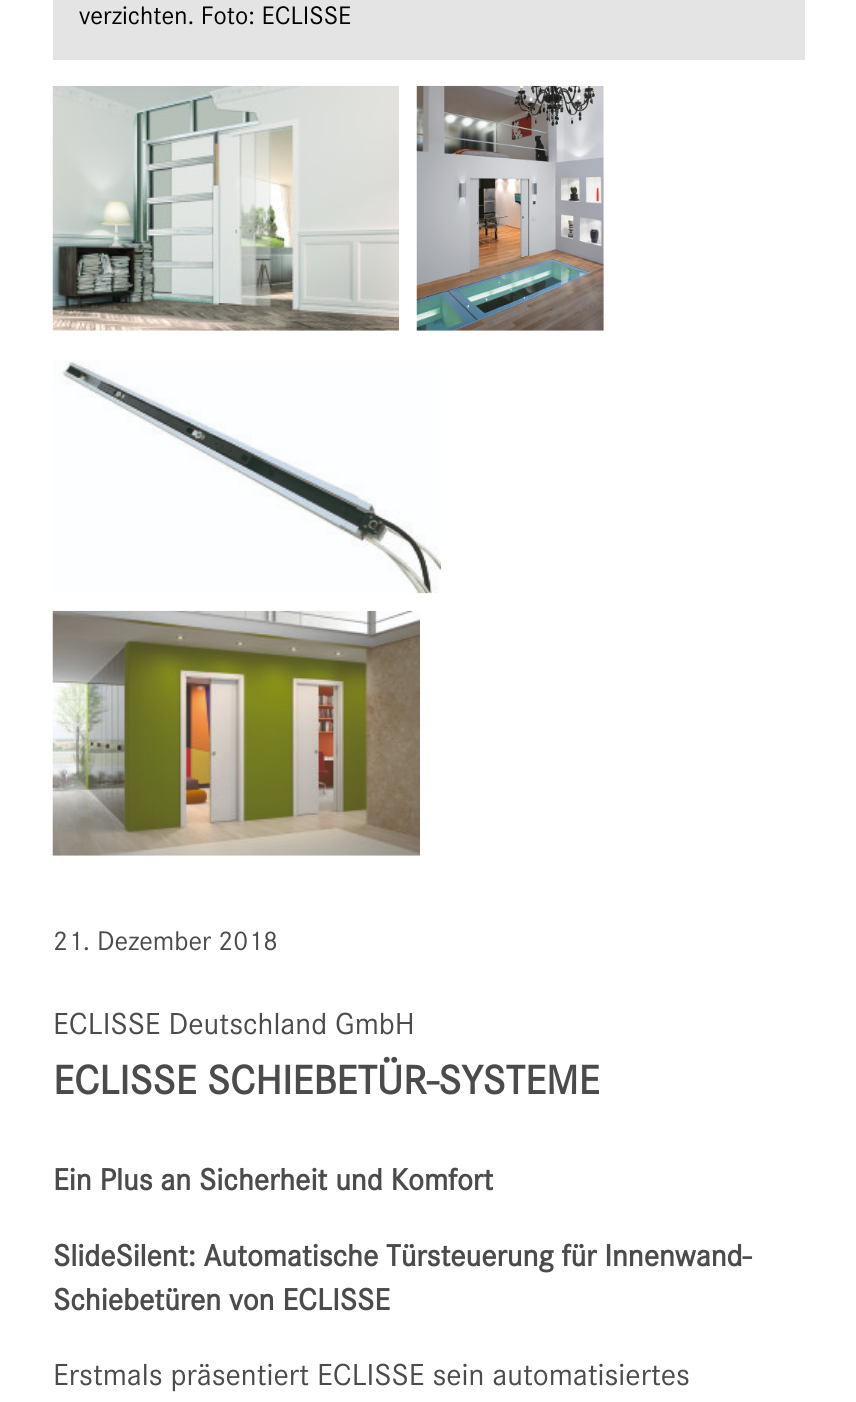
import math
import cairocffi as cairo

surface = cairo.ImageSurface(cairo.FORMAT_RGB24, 856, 1402)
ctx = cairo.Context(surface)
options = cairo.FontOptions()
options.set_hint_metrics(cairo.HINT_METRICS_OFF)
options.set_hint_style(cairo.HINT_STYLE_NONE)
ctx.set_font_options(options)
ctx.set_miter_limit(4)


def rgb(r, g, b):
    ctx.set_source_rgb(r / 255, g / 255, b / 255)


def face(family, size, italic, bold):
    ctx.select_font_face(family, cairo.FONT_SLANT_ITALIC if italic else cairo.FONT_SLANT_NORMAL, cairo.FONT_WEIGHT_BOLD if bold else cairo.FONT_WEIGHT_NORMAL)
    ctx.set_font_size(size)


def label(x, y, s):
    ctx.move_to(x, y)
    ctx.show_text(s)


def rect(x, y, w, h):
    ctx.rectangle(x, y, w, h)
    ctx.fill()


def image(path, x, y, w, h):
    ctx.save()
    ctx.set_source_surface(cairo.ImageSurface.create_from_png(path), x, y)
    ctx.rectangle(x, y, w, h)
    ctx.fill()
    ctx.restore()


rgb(255, 255, 255)
ctx.paint()
rgb(228, 228, 228)
rect(53, 0, 752, 60)
face('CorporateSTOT', 26.25, 0, 0)
rgb(0, 0, 0)
label(79, 24, 'verzichten. Foto: ECLISSE')
image('image0.png', 52, 85, 347, 246)
image('image1.png', 416, 85, 188, 246)
image('image2.png', 53, 360, 388, 234)
image('image3.png', 52, 610, 368, 246)
face('CorporateSTOT', 28, 0, 0)
rgb(75, 75, 75)
label(53, 950, '21. Dezember 2018')
face('CorporateSTOT', 31.5, 0, 0)
label(53, 1034, 'ECLISSE Deutschland GmbH')
face('CorporateSTOT', 42, 0, 1)
label(53, 1094, 'ECLISSE SCHIEBETÜR-SYSTEME')
face('CorporateSTOT', 31.5, 0, 1)
label(53, 1190, 'Ein Plus an Sicherheit und Komfort')
label(53, 1266, 'SlideSilent: Automatische Türsteuerung für Innenwand-')
label(53, 1310, 'Schiebetüren von ECLISSE')
face('CorporateSTOT', 31.5, 0, 0)
label(53, 1385, 'Erstmals präsentiert ECLISSE sein automatisiertes')
surface.write_to_png('render.png')
